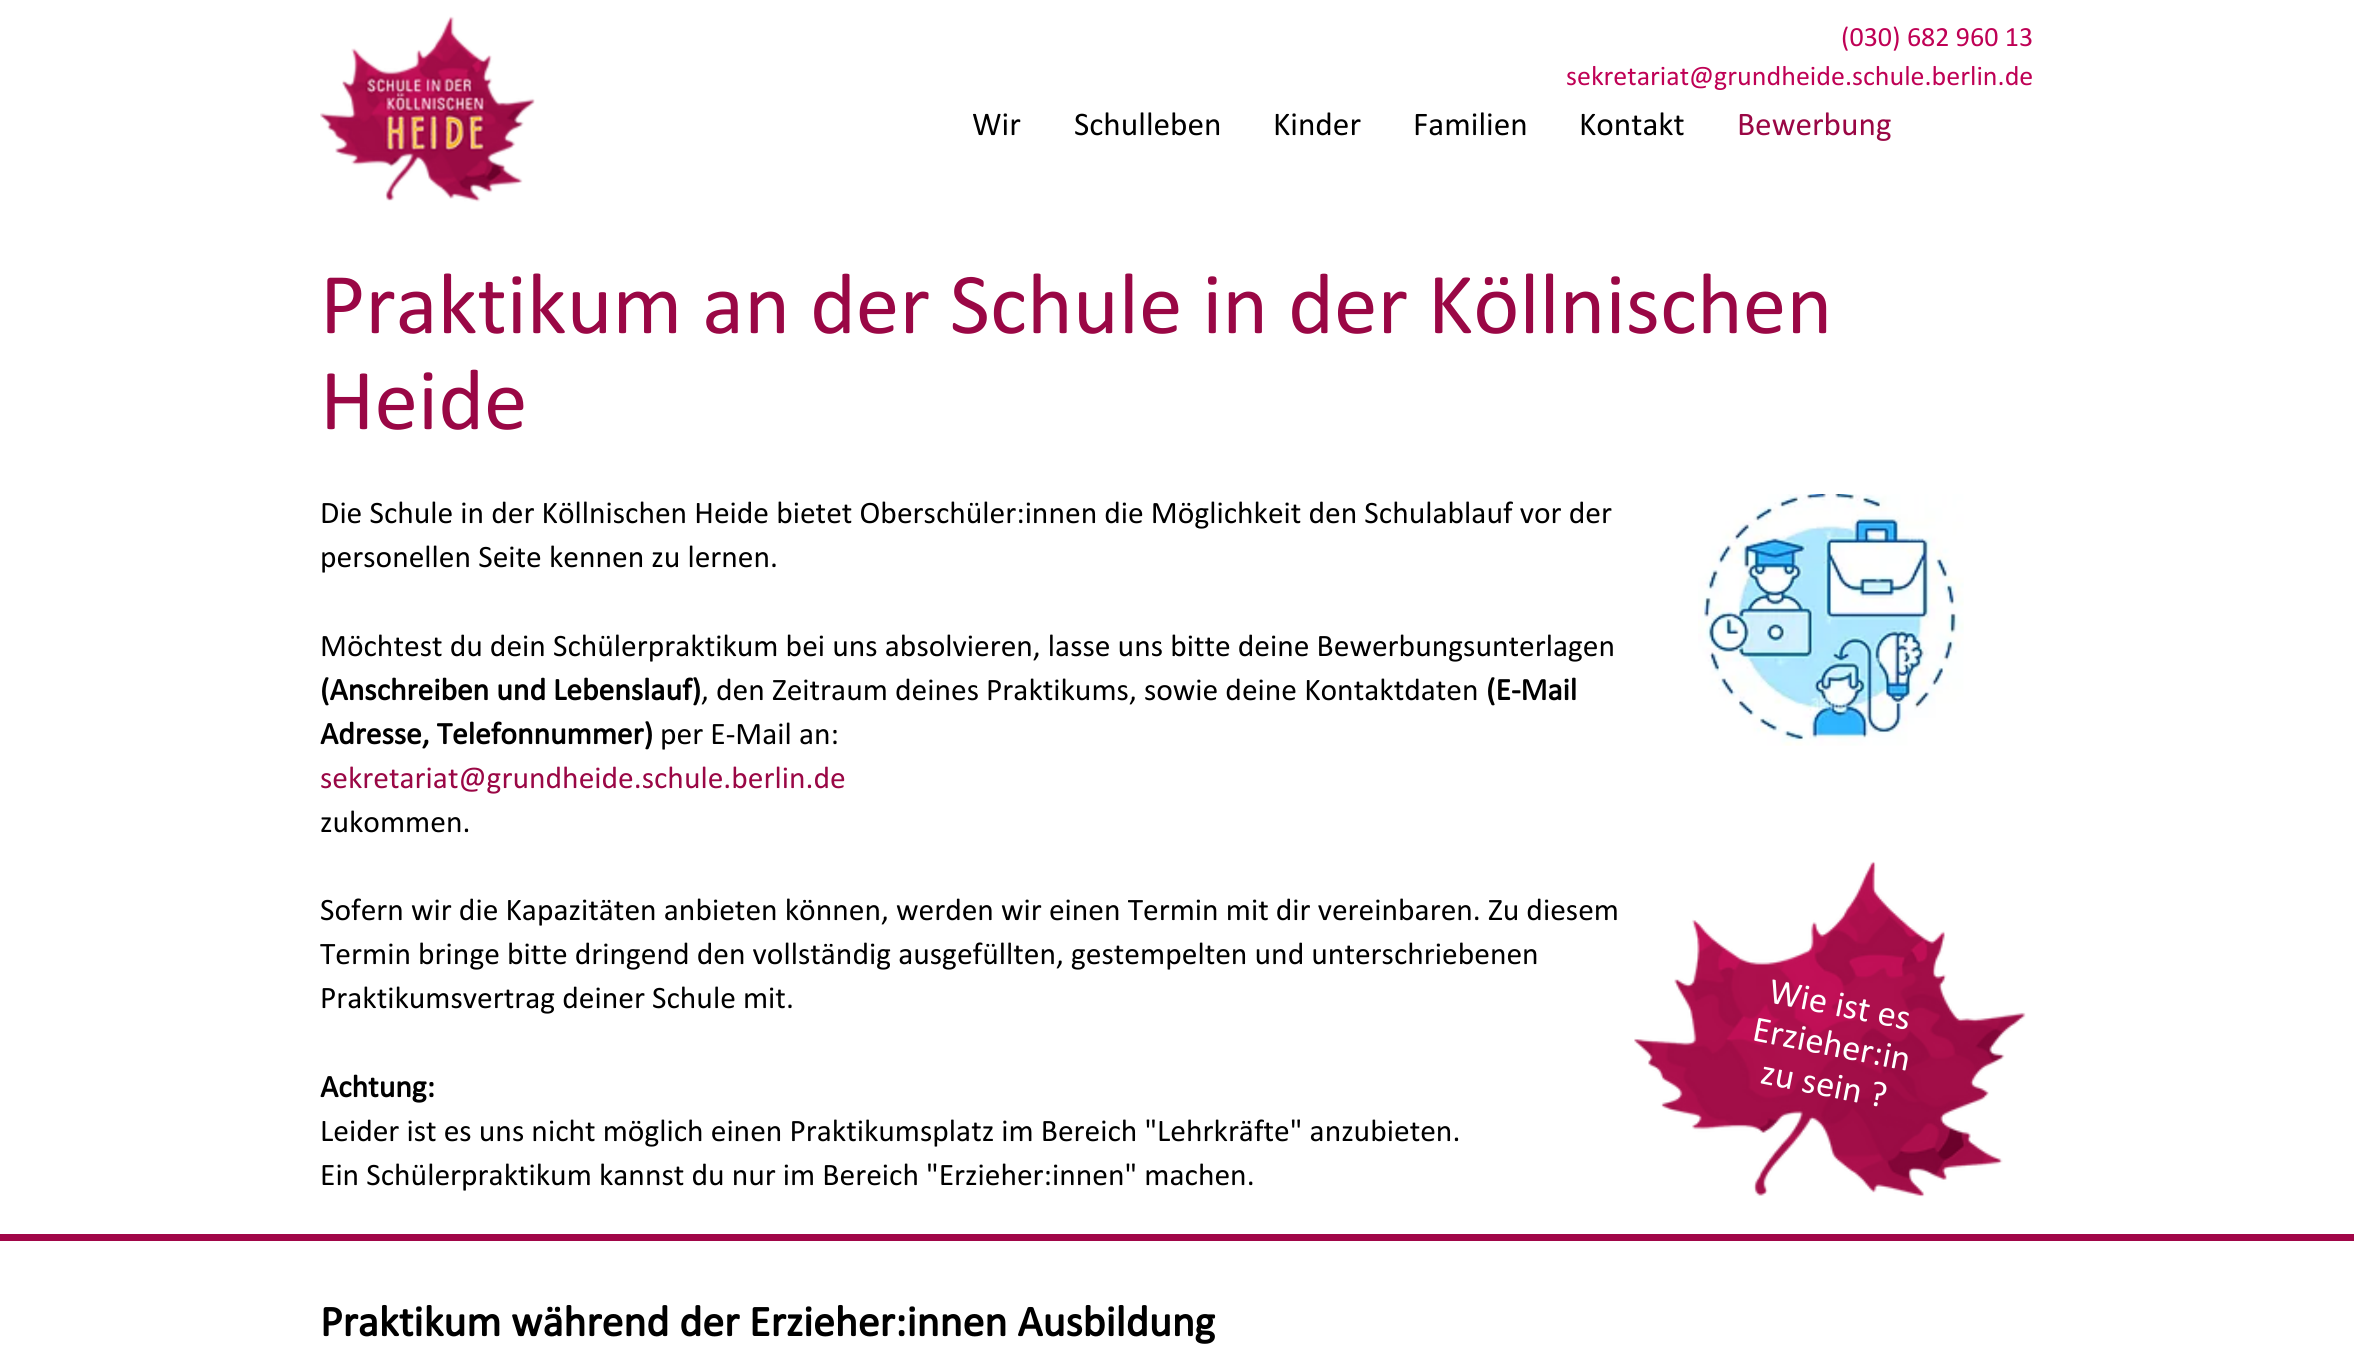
import math
import cairocffi as cairo

surface = cairo.ImageSurface(cairo.FORMAT_RGB24, 2354, 1346)
ctx = cairo.Context(surface)
options = cairo.FontOptions()
options.set_hint_metrics(cairo.HINT_METRICS_OFF)
options.set_hint_style(cairo.HINT_STYLE_NONE)
ctx.set_font_options(options)
ctx.set_miter_limit(4)


def rgb(r, g, b):
    ctx.set_source_rgb(r / 255, g / 255, b / 255)


def face(family, size, italic, bold):
    ctx.select_font_face(family, cairo.FONT_SLANT_ITALIC if italic else cairo.FONT_SLANT_NORMAL, cairo.FONT_WEIGHT_BOLD if bold else cairo.FONT_WEIGHT_NORMAL)
    ctx.set_font_size(size)


def label(x, y, s):
    ctx.move_to(x, y)
    ctx.show_text(s)


def rect(x, y, w, h):
    ctx.rectangle(x, y, w, h)
    ctx.fill()


def image(path, x, y, w, h):
    ctx.save()
    ctx.set_source_surface(cairo.ImageSurface.create_from_png(path), x, y)
    ctx.rectangle(x, y, w, h)
    ctx.fill()
    ctx.restore()


rgb(255, 255, 255)
ctx.paint()
image('image0.png', 320, 16, 215, 186)
face('Calibri', 28, 0, 0)
rgb(191, 1, 85)
label(1841, 46, '(030) 682 960 13')
label(1566, 85, 'sekretariat@grundheide.schule.berlin.de')
face('Calibri', 33.25, 0, 0)
rgb(0, 0, 0)
label(972, 135, 'Wir')
label(1074, 135, 'Schulleben')
label(1273, 135, 'Kinder')
label(1413, 135, 'Familien')
label(1579, 135, 'Kontakt')
rgb(154, 7, 69)
label(1737, 135, 'Bewerbung')
face('Calibri', 87.5, 0, 0)
label(320, 333, 'Praktikum an der Schule in der Köllnischen')
label(320, 429, 'Heide')
face('Calibri', 31.5, 0, 0)
rgb(0, 0, 0)
label(320, 523, 'Die Schule in der Köllnischen Heide bietet Oberschüler:innen die Möglichkeit den Schulablauf vor der')
label(320, 567, 'personellen Seite kennen zu lernen.')
label(320, 656, 'Möchtest du dein Schülerpraktikum bei uns absolvieren, lasse uns bitte deine Bewerbungsunterlagen')
face('Calibri', 31.5, 0, 1)
label(320, 700, '(Anschreiben und Lebenslauf)')
face('Calibri', 31.5, 0, 0)
label(701, 700, ', den Zeitraum deines Praktikums, sowie deine Kontaktdaten')
face('Calibri', 31.5, 0, 1)
label(1486, 700, '(E-Mail')
label(320, 744, 'Adresse, Telefonnummer)')
face('Calibri', 31.5, 0, 0)
label(660, 744, 'per E-Mail an:')
rgb(154, 7, 69)
label(320, 788, 'sekretariat@grundheide.schule.berlin.de')
rgb(0, 0, 0)
label(320, 832, 'zukommen.')
label(320, 920, 'Sofern wir die Kapazitäten anbieten können, werden wir einen Termin mit dir vereinbaren. Zu diesem')
label(320, 964, 'Termin bringe bitte dringend den vollständig ausgefüllten, gestempelten und unterschriebenen')
label(320, 1008, 'Praktikumsvertrag deiner Schule mit.')
face('Calibri', 31.5, 0, 1)
label(320, 1097, 'Achtung:')
face('Calibri', 31.5, 0, 0)
label(320, 1141, 'Leider ist es uns nicht möglich einen Praktikumsplatz im Bereich "Lehrkräfte" anzubieten.')
label(320, 1185, 'Ein Schülerpraktikum kannst du nur im Bereich "Erzieher:innen" machen.')
image('image1.png', 1698, 494, 266, 252)
image('image2.png', 1634, 861, 392, 336)
face('Calibri', 36.75, 0, 0)
rgb(255, 255, 255)
ctx.save()
ctx.translate(1767, 1002)
ctx.rotate(11.2 * math.pi / 180)
label(0, 0, 'Wie ist es')
ctx.restore()
ctx.save()
ctx.translate(1751, 1040)
ctx.rotate(11.2 * math.pi / 180)
label(0, 0, 'Erzieher:in')
ctx.restore()
ctx.save()
ctx.translate(1759, 1083)
ctx.rotate(11.2 * math.pi / 180)
label(0, 0, 'zu sein ?')
ctx.restore()
rgb(161, 6, 72)
rect(0, 1234, 2354, 7)
face('Calibri', 43.75, 0, 1)
rgb(0, 0, 0)
label(320, 1336, 'Praktikum während der Erzieher:innen Ausbildung')
surface.write_to_png('render.png')
